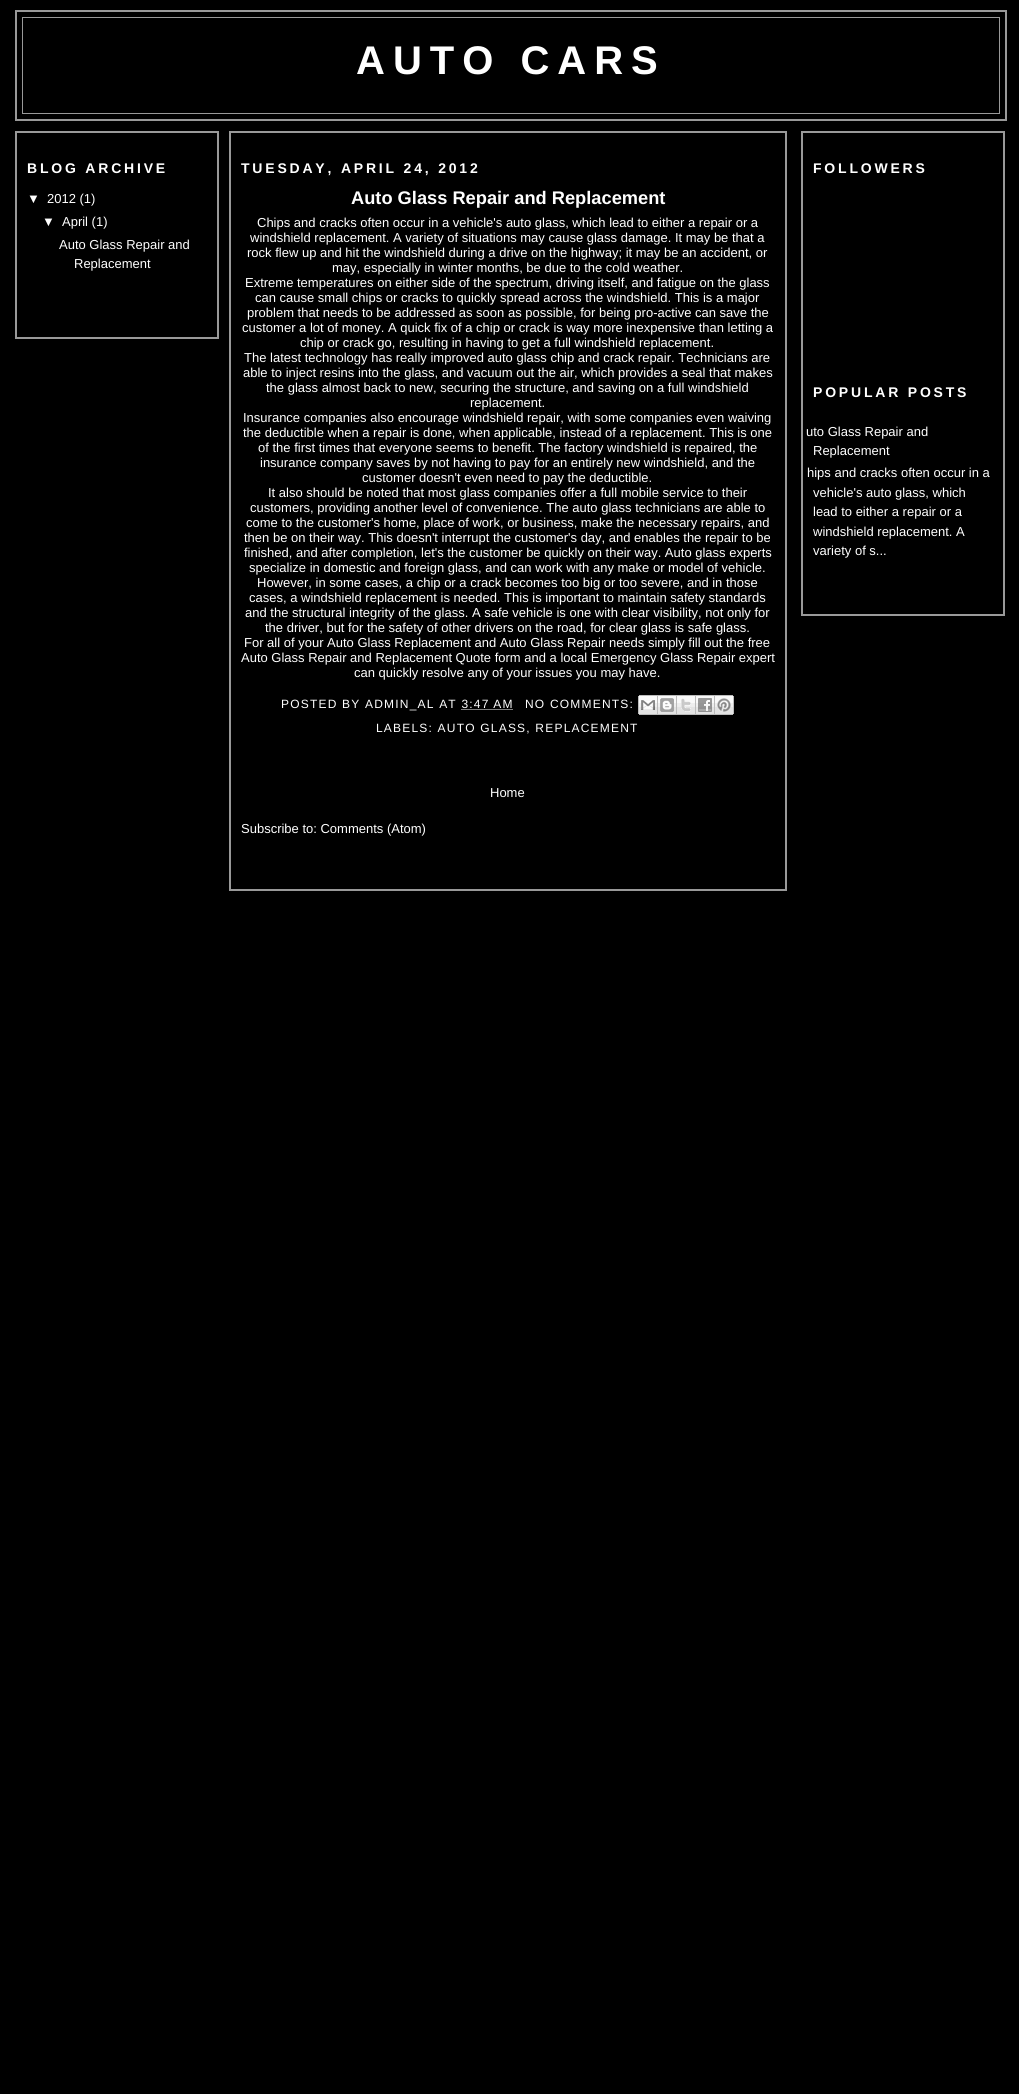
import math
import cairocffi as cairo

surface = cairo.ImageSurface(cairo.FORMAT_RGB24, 1019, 2094)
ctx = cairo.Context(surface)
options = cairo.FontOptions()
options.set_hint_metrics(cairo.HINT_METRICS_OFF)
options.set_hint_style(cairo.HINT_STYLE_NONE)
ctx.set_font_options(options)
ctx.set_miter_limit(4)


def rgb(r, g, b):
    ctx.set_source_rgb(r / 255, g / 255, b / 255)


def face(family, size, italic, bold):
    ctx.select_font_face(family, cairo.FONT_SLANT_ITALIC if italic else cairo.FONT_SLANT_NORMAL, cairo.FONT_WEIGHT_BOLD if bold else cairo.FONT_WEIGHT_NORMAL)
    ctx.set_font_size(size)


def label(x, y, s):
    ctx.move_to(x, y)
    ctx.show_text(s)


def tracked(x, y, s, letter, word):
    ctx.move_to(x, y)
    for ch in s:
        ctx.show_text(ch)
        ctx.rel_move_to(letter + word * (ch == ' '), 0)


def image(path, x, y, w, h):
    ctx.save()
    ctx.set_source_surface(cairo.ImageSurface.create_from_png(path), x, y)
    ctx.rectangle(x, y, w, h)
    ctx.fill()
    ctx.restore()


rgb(0, 0, 0)
ctx.paint()
ctx.rectangle(16, 11, 990, 109)
rgb(153, 153, 153)
ctx.stroke()
ctx.rectangle(22.5, 17.5, 977, 96)
ctx.set_line_width(1)
ctx.stroke()
face('Liberation Sans', 40, 0, 1)
rgb(255, 255, 255)
tracked(356, 74, 'AUTO CARS', 8, 0)
ctx.rectangle(16, 132, 202, 206)
rgb(153, 153, 153)
ctx.set_line_width(2)
ctx.stroke()
face('Liberation Sans', 14, 0, 1)
rgb(255, 255, 255)
tracked(27, 173, 'BLOG ARCHIVE', 2.8, 0)
face('Liberation Sans', 13, 0, 0)
label(27, 203, '▼')
label(47, 203, '2012 (1)')
label(42, 226, '▼')
label(62, 226, 'April (1)')
label(59, 249, 'Auto Glass Repair and')
label(74, 268, 'Replacement')
ctx.rectangle(230, 132, 556, 758)
rgb(153, 153, 153)
ctx.stroke()
face('Liberation Sans', 14, 0, 1)
rgb(255, 255, 255)
tracked(241, 173, 'TUESDAY, APRIL 24, 2012', 2.8, 0)
face('Liberation Sans', 18.25, 0, 1)
label(351, 204, 'Auto Glass Repair and Replacement')
face('Liberation Sans', 13, 0, 0)
label(257, 227, 'Chips and cracks often occur in a vehicle\'s auto glass, which lead to either a repair or a')
label(250, 242, 'windshield replacement. A variety of situations may cause glass damage. It may be that a')
label(247, 257, 'rock flew up and hit the windshield during a drive on the highway; it may be an accident, or')
label(332, 272, 'may, especially in winter months, be due to the cold weather.')
label(245, 287, 'Extreme temperatures on either side of the spectrum, driving itself, and fatigue on the glass')
label(255, 302, 'can cause small chips or cracks to quickly spread across the windshield. This is a major')
label(247, 317, 'problem that needs to be addressed as soon as possible, for being pro-active can save the')
label(242, 332, 'customer a lot of money. A quick fix of a chip or crack is way more inexpensive than letting a')
label(300, 347, 'chip or crack go, resulting in having to get a full windshield replacement.')
label(244, 362, 'The latest technology has really improved auto glass chip and crack repair. Technicians are')
label(243, 377, 'able to inject resins into the glass, and vacuum out the air, which provides a seal that makes')
label(266, 392, 'the glass almost back to new, securing the structure, and saving on a full windshield')
label(470, 407, 'replacement.')
label(243, 422, 'Insurance companies also encourage windshield repair, with some companies even waiving')
label(243, 437, 'the deductible when a repair is done, when applicable, instead of a replacement. This is one')
label(258, 452, 'of the first times that everyone seems to benefit. The factory windshield is repaired, the')
label(260, 467, 'insurance company saves by not having to pay for an entirely new windshield, and the')
label(362, 482, 'customer doesn\'t even need to pay the deductible.')
label(268, 497, 'It also should be noted that most glass companies offer a full mobile service to their')
label(250, 512, 'customers, providing another level of convenience. The auto glass technicians are able to')
label(246, 527, 'come to the customer\'s home, place of work, or business, make the necessary repairs, and')
label(244, 542, 'then be on their way. This doesn\'t interrupt the customer\'s day, and enables the repair to be')
label(244, 557, 'finished, and after completion, let\'s the customer be quickly on their way. Auto glass experts')
label(249, 572, 'specialize in domestic and foreign glass, and can work with any make or model of vehicle.')
label(257, 587, 'However, in some cases, a chip or a crack becomes too big or too severe, and in those')
label(249, 602, 'cases, a windshield replacement is needed. This is important to maintain safety standards')
label(245, 617, 'and the structural integrity of the glass. A safe vehicle is one with clear visibility, not only for')
label(265, 632, 'the driver, but for the safety of other drivers on the road, for clear glass is safe glass.')
label(244, 647, 'For all of your Auto Glass Replacement and Auto Glass Repair needs simply fill out the free')
label(241, 662, 'Auto Glass Repair and Replacement Quote form and a local Emergency Glass Repair expert')
label(354, 677, 'can quickly resolve any of your issues you may have.')
face('Liberation Sans', 12, 0, 0)
tracked(281, 708, 'POSTED BY ADMIN_AL AT 3:47 AM', 1.2, 0)
tracked(525, 708, 'NO COMMENTS:', 1.2, 0)
image('image0.png', 638, 695, 20, 20)
image('image1.png', 658, 695, 19, 20)
image('image2.png', 677, 695, 19, 20)
image('image3.png', 696, 695, 19, 20)
image('image4.png', 715, 695, 19, 20)
ctx.new_path()
ctx.move_to(461.5, 709.5)
ctx.line_to(513.5, 709.5)
ctx.set_line_width(1)
ctx.set_dash([1, 1])
ctx.stroke()
tracked(376, 732, 'LABELS: AUTO GLASS, REPLACEMENT', 1.2, 0)
face('Liberation Sans', 13, 0, 0)
label(490, 797, 'Home')
label(241, 833, 'Subscribe to: Comments (Atom)')
ctx.rectangle(802, 132, 202, 483)
rgb(153, 153, 153)
ctx.set_line_width(2)
ctx.set_dash([])
ctx.stroke()
face('Liberation Sans', 14, 0, 1)
rgb(255, 255, 255)
tracked(813, 173, 'FOLLOWERS', 2.8, 0)
tracked(813, 397, 'POPULAR POSTS', 2.8, 0)
face('Liberation Sans', 13, 0, 0)
label(806, 436, 'uto Glass Repair and')
label(813, 455, 'Replacement')
label(807, 477, 'hips and cracks often occur in a')
label(813, 497, 'vehicle\'s auto glass, which')
label(813, 516, 'lead to either a repair or a')
label(813, 536, 'windshield replacement. A')
label(813, 555, 'variety of s...')
surface.write_to_png('render.png')
